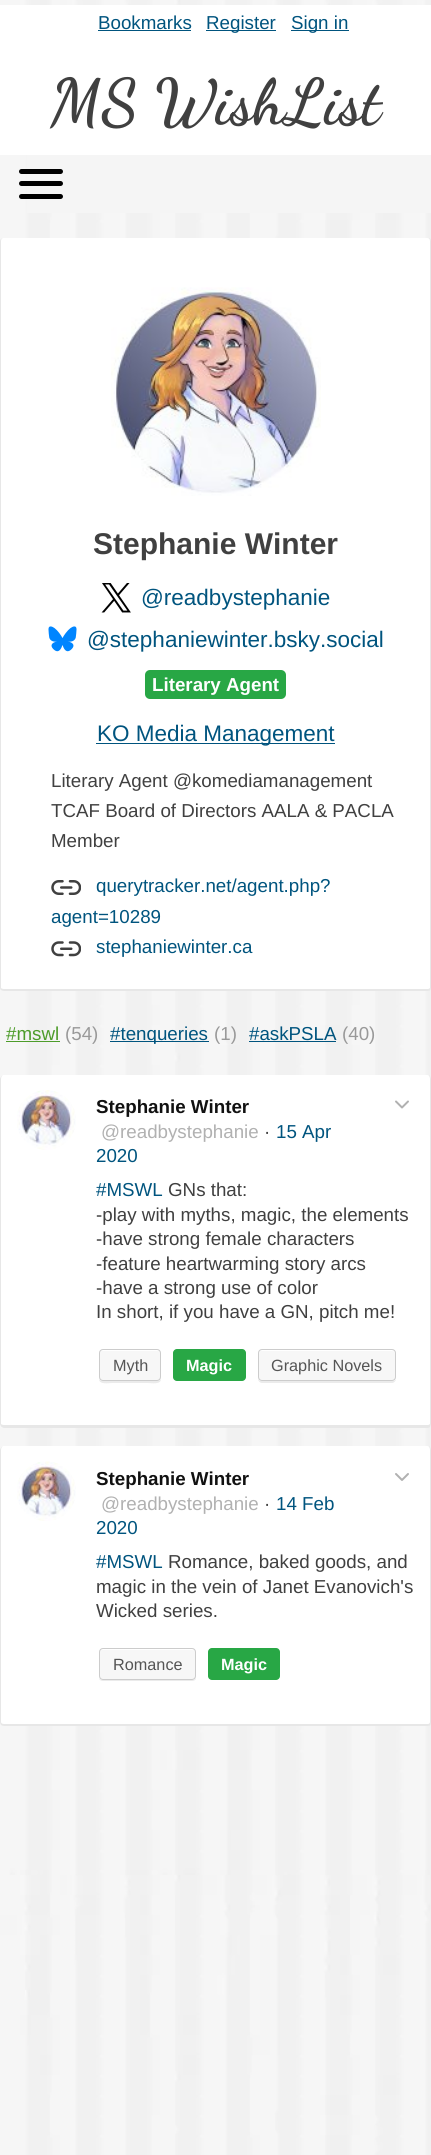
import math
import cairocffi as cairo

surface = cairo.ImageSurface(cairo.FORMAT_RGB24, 431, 2155)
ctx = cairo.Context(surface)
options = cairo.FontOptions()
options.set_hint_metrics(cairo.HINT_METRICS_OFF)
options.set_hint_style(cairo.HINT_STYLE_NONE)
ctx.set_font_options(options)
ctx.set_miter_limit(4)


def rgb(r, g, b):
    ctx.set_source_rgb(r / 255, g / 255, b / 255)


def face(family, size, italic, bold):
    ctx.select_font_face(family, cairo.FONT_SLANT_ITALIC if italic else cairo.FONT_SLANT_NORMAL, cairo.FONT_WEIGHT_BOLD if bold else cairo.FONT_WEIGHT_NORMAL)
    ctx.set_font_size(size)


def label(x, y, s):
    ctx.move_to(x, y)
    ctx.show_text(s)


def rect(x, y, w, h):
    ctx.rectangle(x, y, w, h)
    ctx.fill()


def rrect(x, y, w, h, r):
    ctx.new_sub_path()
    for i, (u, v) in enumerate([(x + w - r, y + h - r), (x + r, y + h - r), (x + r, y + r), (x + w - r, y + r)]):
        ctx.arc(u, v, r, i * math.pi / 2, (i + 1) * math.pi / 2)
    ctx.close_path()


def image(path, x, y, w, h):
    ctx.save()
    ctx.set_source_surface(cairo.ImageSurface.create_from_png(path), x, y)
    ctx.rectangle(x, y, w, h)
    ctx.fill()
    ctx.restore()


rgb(255, 255, 255)
ctx.paint()
image('image0.png', 0, 0, 431, 2155)
rgb(255, 255, 255)
rect(0, 5, 431, 150)
face('Liberation Sans', 18.75, 0, 0)
rgb(0, 84, 126)
label(98, 29, 'Bookmarks')
rect(98, 30, 93, 1)
rect(206, 30, 70, 1)
label(206, 29, 'Register')
rect(291, 30, 58, 1)
label(291, 29, 'Sign in')
face('Dancing Script', 64, 0, 1)
rgb(64, 64, 64)
label(50, 123, 'MS WishList')
rgb(245, 245, 245)
rect(27, 155, 404, 58)
rgb(0, 0, 0)
rrect(19, 181, 44, 5, 2.5)
ctx.fill()
rrect(19, 169, 44, 5, 2.5)
ctx.fill()
rrect(19, 194, 44, 5, 2.5)
ctx.fill()
rgb(255, 255, 255)
rrect(0, 238, 431, 753, 4)
ctx.fill()
rgb(231, 231, 231)
ctx.set_fill_rule(cairo.FILL_RULE_EVEN_ODD)
ctx.new_path()
ctx.move_to(4, 238)
ctx.line_to(428, 238)
ctx.curve_to(430, 238, 431, 239, 431, 241)
ctx.line_to(431, 988)
ctx.curve_to(431, 990, 430, 991, 428, 991)
ctx.line_to(4, 991)
ctx.curve_to(2, 991, 0, 990, 0, 988)
ctx.line_to(0, 241)
ctx.curve_to(0, 239, 2, 238, 4, 238)
ctx.close_path()
ctx.move_to(4, 238)
ctx.line_to(428, 238)
ctx.curve_to(429, 238, 430, 239, 430, 241)
ctx.line_to(430, 988)
ctx.curve_to(430, 988, 429, 989, 428, 989)
ctx.line_to(4, 989)
ctx.curve_to(2, 989, 1, 988, 1, 988)
ctx.line_to(1, 241)
ctx.curve_to(1, 239, 2, 238, 4, 238)
ctx.close_path()
ctx.fill()
image('image1.png', 111, 287, 210, 209)
face('Liberation Sans', 30, 0, 1)
rgb(64, 64, 64)
label(93, 554, 'Stephanie Winter')
image('image2.png', 101, 583, 30, 30)
face('Liberation Sans', 22.5, 0, 0)
rgb(0, 84, 126)
label(141, 605, '@readbystephanie')
image('image3.png', 48, 626, 29, 26)
label(87, 647, '@stephaniewinter.bsky.social')
rgb(40, 167, 69)
rrect(145, 670, 141, 29, 5)
ctx.fill()
face('Liberation Sans', 18.75, 0, 1)
rgb(255, 255, 255)
label(152, 691, 'Literary Agent')
rgb(0, 84, 126)
rect(96, 743, 239, 1)
face('Liberation Sans', 22.5, 0, 0)
label(97, 741, 'KO Media Management')
face('Liberation Sans', 18.75, 0, 0)
rgb(64, 64, 64)
label(51, 787, 'Literary Agent @komediamanagement')
label(51, 817, 'TCAF Board of Directors AALA & PACLA')
label(51, 847, 'Member')
image('image4.png', 51, 880, 30, 15)
rgb(0, 84, 126)
label(96, 892, 'querytracker.net/agent.php?')
label(51, 923, 'agent=10289')
image('image5.png', 51, 941, 30, 16)
label(96, 953, 'stephaniewinter.ca')
rgb(77, 156, 42)
label(6, 1040, '#mswl')
rect(6, 1041, 54, 1)
rgb(153, 153, 153)
label(65, 1040, '(54)')
rgb(0, 84, 126)
rect(110, 1041, 99, 1)
label(110, 1040, '#tenqueries')
rgb(153, 153, 153)
label(214, 1040, '(1)')
rgb(0, 84, 126)
label(249, 1040, '#askPSLA')
rect(249, 1041, 87, 1)
rgb(153, 153, 153)
label(342, 1040, '(40)')
rgb(255, 255, 255)
rrect(0, 1075, 431, 353, 4)
ctx.fill()
rgb(231, 231, 231)
ctx.new_path()
ctx.move_to(4, 1075)
ctx.line_to(428, 1075)
ctx.curve_to(430, 1075, 431, 1077, 431, 1079)
ctx.line_to(431, 1424)
ctx.curve_to(431, 1426, 430, 1428, 428, 1428)
ctx.line_to(4, 1428)
ctx.curve_to(2, 1428, 0, 1426, 0, 1424)
ctx.line_to(0, 1079)
ctx.curve_to(0, 1077, 2, 1075, 4, 1075)
ctx.close_path()
ctx.move_to(4, 1075)
ctx.line_to(428, 1075)
ctx.curve_to(429, 1075, 430, 1077, 430, 1079)
ctx.line_to(430, 1424)
ctx.curve_to(430, 1424, 429, 1425, 428, 1425)
ctx.line_to(4, 1425)
ctx.curve_to(2, 1425, 1, 1424, 1, 1424)
ctx.line_to(1, 1079)
ctx.curve_to(1, 1077, 2, 1075, 4, 1075)
ctx.close_path()
ctx.fill()
image('image6.png', 17, 1090, 59, 60)
face('Liberation Sans', 18.75, 0, 1)
rgb(17, 17, 17)
label(96, 1113, 'Stephanie Winter')
face('Liberation Sans', 18.75, 0, 0)
rgb(177, 177, 177)
label(101, 1138, '@readbystephanie')
rgb(64, 64, 64)
label(264, 1138, '·')
rgb(0, 84, 126)
label(276, 1138, '15 Apr')
label(96, 1162, '2020')
ctx.new_path()
ctx.move_to(396, 1101.5)
ctx.line_to(402, 1107.5)
ctx.line_to(408, 1101.5)
rgb(177, 177, 177)
ctx.set_line_cap(cairo.LINE_CAP_ROUND)
ctx.set_line_join(cairo.LINE_JOIN_ROUND)
ctx.stroke()
rgb(0, 84, 126)
label(96, 1196, '#MSWL')
rgb(64, 64, 64)
label(168, 1196, 'GNs that:')
label(96, 1221, '-play with myths, magic, the elements')
label(96, 1245, '-have strong female characters')
label(96, 1270, '-feature heartwarming story arcs')
label(96, 1294, '-have a strong use of color')
label(96, 1318, 'In short, if you have a GN, pitch me!')
rgb(235, 235, 235)
ctx.set_fill_rule(cairo.FILL_RULE_WINDING)
ctx.new_path()
ctx.move_to(99, 1379)
ctx.curve_to(99, 1385, 109, 1383, 112, 1383)
ctx.line_to(148, 1383)
ctx.curve_to(151, 1383, 161, 1385, 161, 1379)
ctx.curve_to(160, 1380, 159, 1381, 158, 1381)
ctx.line_to(102, 1381)
ctx.curve_to(101, 1381, 100, 1380, 99, 1379)
ctx.close_path()
ctx.fill()
rgb(247, 247, 247)
rrect(99, 1349, 62, 32, 4)
ctx.fill()
rgb(255, 255, 255)
ctx.new_path()
ctx.move_to(102, 1351)
ctx.line_to(158, 1351)
ctx.curve_to(159, 1351, 160, 1352, 160, 1354)
ctx.curve_to(160, 1348, 154, 1350, 148, 1350)
ctx.line_to(112, 1350)
ctx.curve_to(106, 1350, 100, 1348, 100, 1354)
ctx.curve_to(100, 1352, 101, 1351, 102, 1351)
ctx.close_path()
ctx.fill()
rrect(99.5, 1349.5, 61, 31, 3.5)
rgb(204, 204, 204)
ctx.set_line_width(1)
ctx.set_line_cap(cairo.LINE_CAP_BUTT)
ctx.set_line_join(cairo.LINE_JOIN_MITER)
ctx.stroke()
face('Liberation Sans', 16.25, 0, 0)
rgb(85, 85, 85)
label(113, 1371, 'Myth')
rgb(40, 167, 69)
rrect(173, 1349, 73, 32, 4)
ctx.fill()
face('Liberation Sans', 16.25, 0, 1)
rgb(255, 255, 255)
label(186, 1371, 'Magic')
rgb(235, 235, 235)
ctx.new_path()
ctx.move_to(258, 1379)
ctx.curve_to(258, 1381, 260, 1383, 262, 1383)
ctx.line_to(392, 1383)
ctx.curve_to(394, 1383, 396, 1381, 396, 1379)
ctx.curve_to(396, 1380, 394, 1381, 393, 1381)
ctx.line_to(260, 1381)
ctx.close_path()
ctx.fill()
rgb(247, 247, 247)
rrect(258, 1349, 138, 32, 4)
ctx.fill()
rgb(255, 255, 255)
ctx.new_path()
ctx.move_to(261, 1351)
ctx.line_to(392, 1351)
ctx.curve_to(394, 1351, 395, 1352, 395, 1354)
ctx.line_to(395, 1352)
ctx.curve_to(395, 1351, 394, 1350, 392, 1350)
ctx.line_to(262, 1350)
ctx.curve_to(260, 1350, 259, 1351, 259, 1352)
ctx.line_to(259, 1354)
ctx.curve_to(259, 1352, 260, 1351, 261, 1351)
ctx.close_path()
ctx.fill()
rrect(258.5, 1349.5, 137, 31, 3.5)
rgb(204, 204, 204)
ctx.stroke()
face('Liberation Sans', 16.25, 0, 0)
rgb(85, 85, 85)
label(271, 1371, 'Graphic Novels')
rgb(255, 255, 255)
rrect(0, 1446, 431, 280, 4)
ctx.fill()
rgb(231, 231, 231)
ctx.set_fill_rule(cairo.FILL_RULE_EVEN_ODD)
ctx.new_path()
ctx.move_to(4, 1446)
ctx.line_to(428, 1446)
ctx.curve_to(430, 1446, 431, 1448, 431, 1450)
ctx.line_to(431, 1722)
ctx.curve_to(431, 1725, 430, 1726, 428, 1726)
ctx.line_to(4, 1726)
ctx.curve_to(2, 1726, 0, 1725, 0, 1722)
ctx.line_to(0, 1450)
ctx.curve_to(0, 1448, 2, 1446, 4, 1446)
ctx.close_path()
ctx.move_to(4, 1446)
ctx.line_to(428, 1446)
ctx.curve_to(429, 1446, 430, 1448, 430, 1450)
ctx.line_to(430, 1722)
ctx.curve_to(430, 1723, 429, 1724, 428, 1724)
ctx.line_to(4, 1724)
ctx.curve_to(2, 1724, 1, 1723, 1, 1722)
ctx.line_to(1, 1450)
ctx.curve_to(1, 1448, 2, 1446, 4, 1446)
ctx.close_path()
ctx.fill()
image('image7.png', 17, 1461, 59, 60)
face('Liberation Sans', 18.75, 0, 1)
rgb(17, 17, 17)
label(96, 1485, 'Stephanie Winter')
face('Liberation Sans', 18.75, 0, 0)
rgb(177, 177, 177)
label(101, 1510, '@readbystephanie')
rgb(64, 64, 64)
label(264, 1510, '·')
rgb(0, 84, 126)
label(276, 1510, '14 Feb')
label(96, 1534, '2020')
ctx.new_path()
ctx.move_to(396, 1474)
ctx.line_to(402, 1480)
ctx.line_to(408, 1474)
rgb(177, 177, 177)
ctx.set_line_width(2)
ctx.set_line_cap(cairo.LINE_CAP_ROUND)
ctx.set_line_join(cairo.LINE_JOIN_ROUND)
ctx.stroke()
rgb(0, 84, 126)
label(96, 1568, '#MSWL')
rgb(64, 64, 64)
label(168, 1568, 'Romance, baked goods, and')
label(96, 1593, 'magic in the vein of Janet Evanovich\'s')
label(96, 1617, 'Wicked series.')
rgb(235, 235, 235)
ctx.set_fill_rule(cairo.FILL_RULE_WINDING)
ctx.new_path()
ctx.move_to(99, 1678)
ctx.curve_to(99, 1680, 101, 1681, 103, 1681)
ctx.line_to(192, 1681)
ctx.curve_to(194, 1681, 196, 1680, 196, 1678)
ctx.curve_to(195, 1679, 194, 1680, 192, 1680)
ctx.line_to(102, 1680)
ctx.curve_to(101, 1680, 100, 1679, 99, 1678)
ctx.close_path()
ctx.fill()
rgb(247, 247, 247)
rrect(99, 1648, 97, 32, 4)
ctx.fill()
rgb(255, 255, 255)
ctx.new_path()
ctx.move_to(102, 1650)
ctx.line_to(192, 1650)
ctx.curve_to(194, 1650, 195, 1651, 195, 1652)
ctx.curve_to(195, 1651, 194, 1649, 193, 1649)
ctx.line_to(102, 1649)
ctx.curve_to(101, 1649, 100, 1651, 100, 1652)
ctx.curve_to(100, 1651, 101, 1650, 102, 1650)
ctx.close_path()
ctx.fill()
rrect(99.5, 1648.5, 96, 31, 3.5)
rgb(204, 204, 204)
ctx.set_line_width(1)
ctx.set_line_cap(cairo.LINE_CAP_BUTT)
ctx.set_line_join(cairo.LINE_JOIN_MITER)
ctx.stroke()
face('Liberation Sans', 16.25, 0, 0)
rgb(85, 85, 85)
label(113, 1670, 'Romance')
rgb(40, 167, 69)
rrect(208, 1648, 72, 32, 4)
ctx.fill()
face('Liberation Sans', 16.25, 0, 1)
rgb(255, 255, 255)
label(221, 1670, 'Magic')
surface.write_to_png('render.png')
